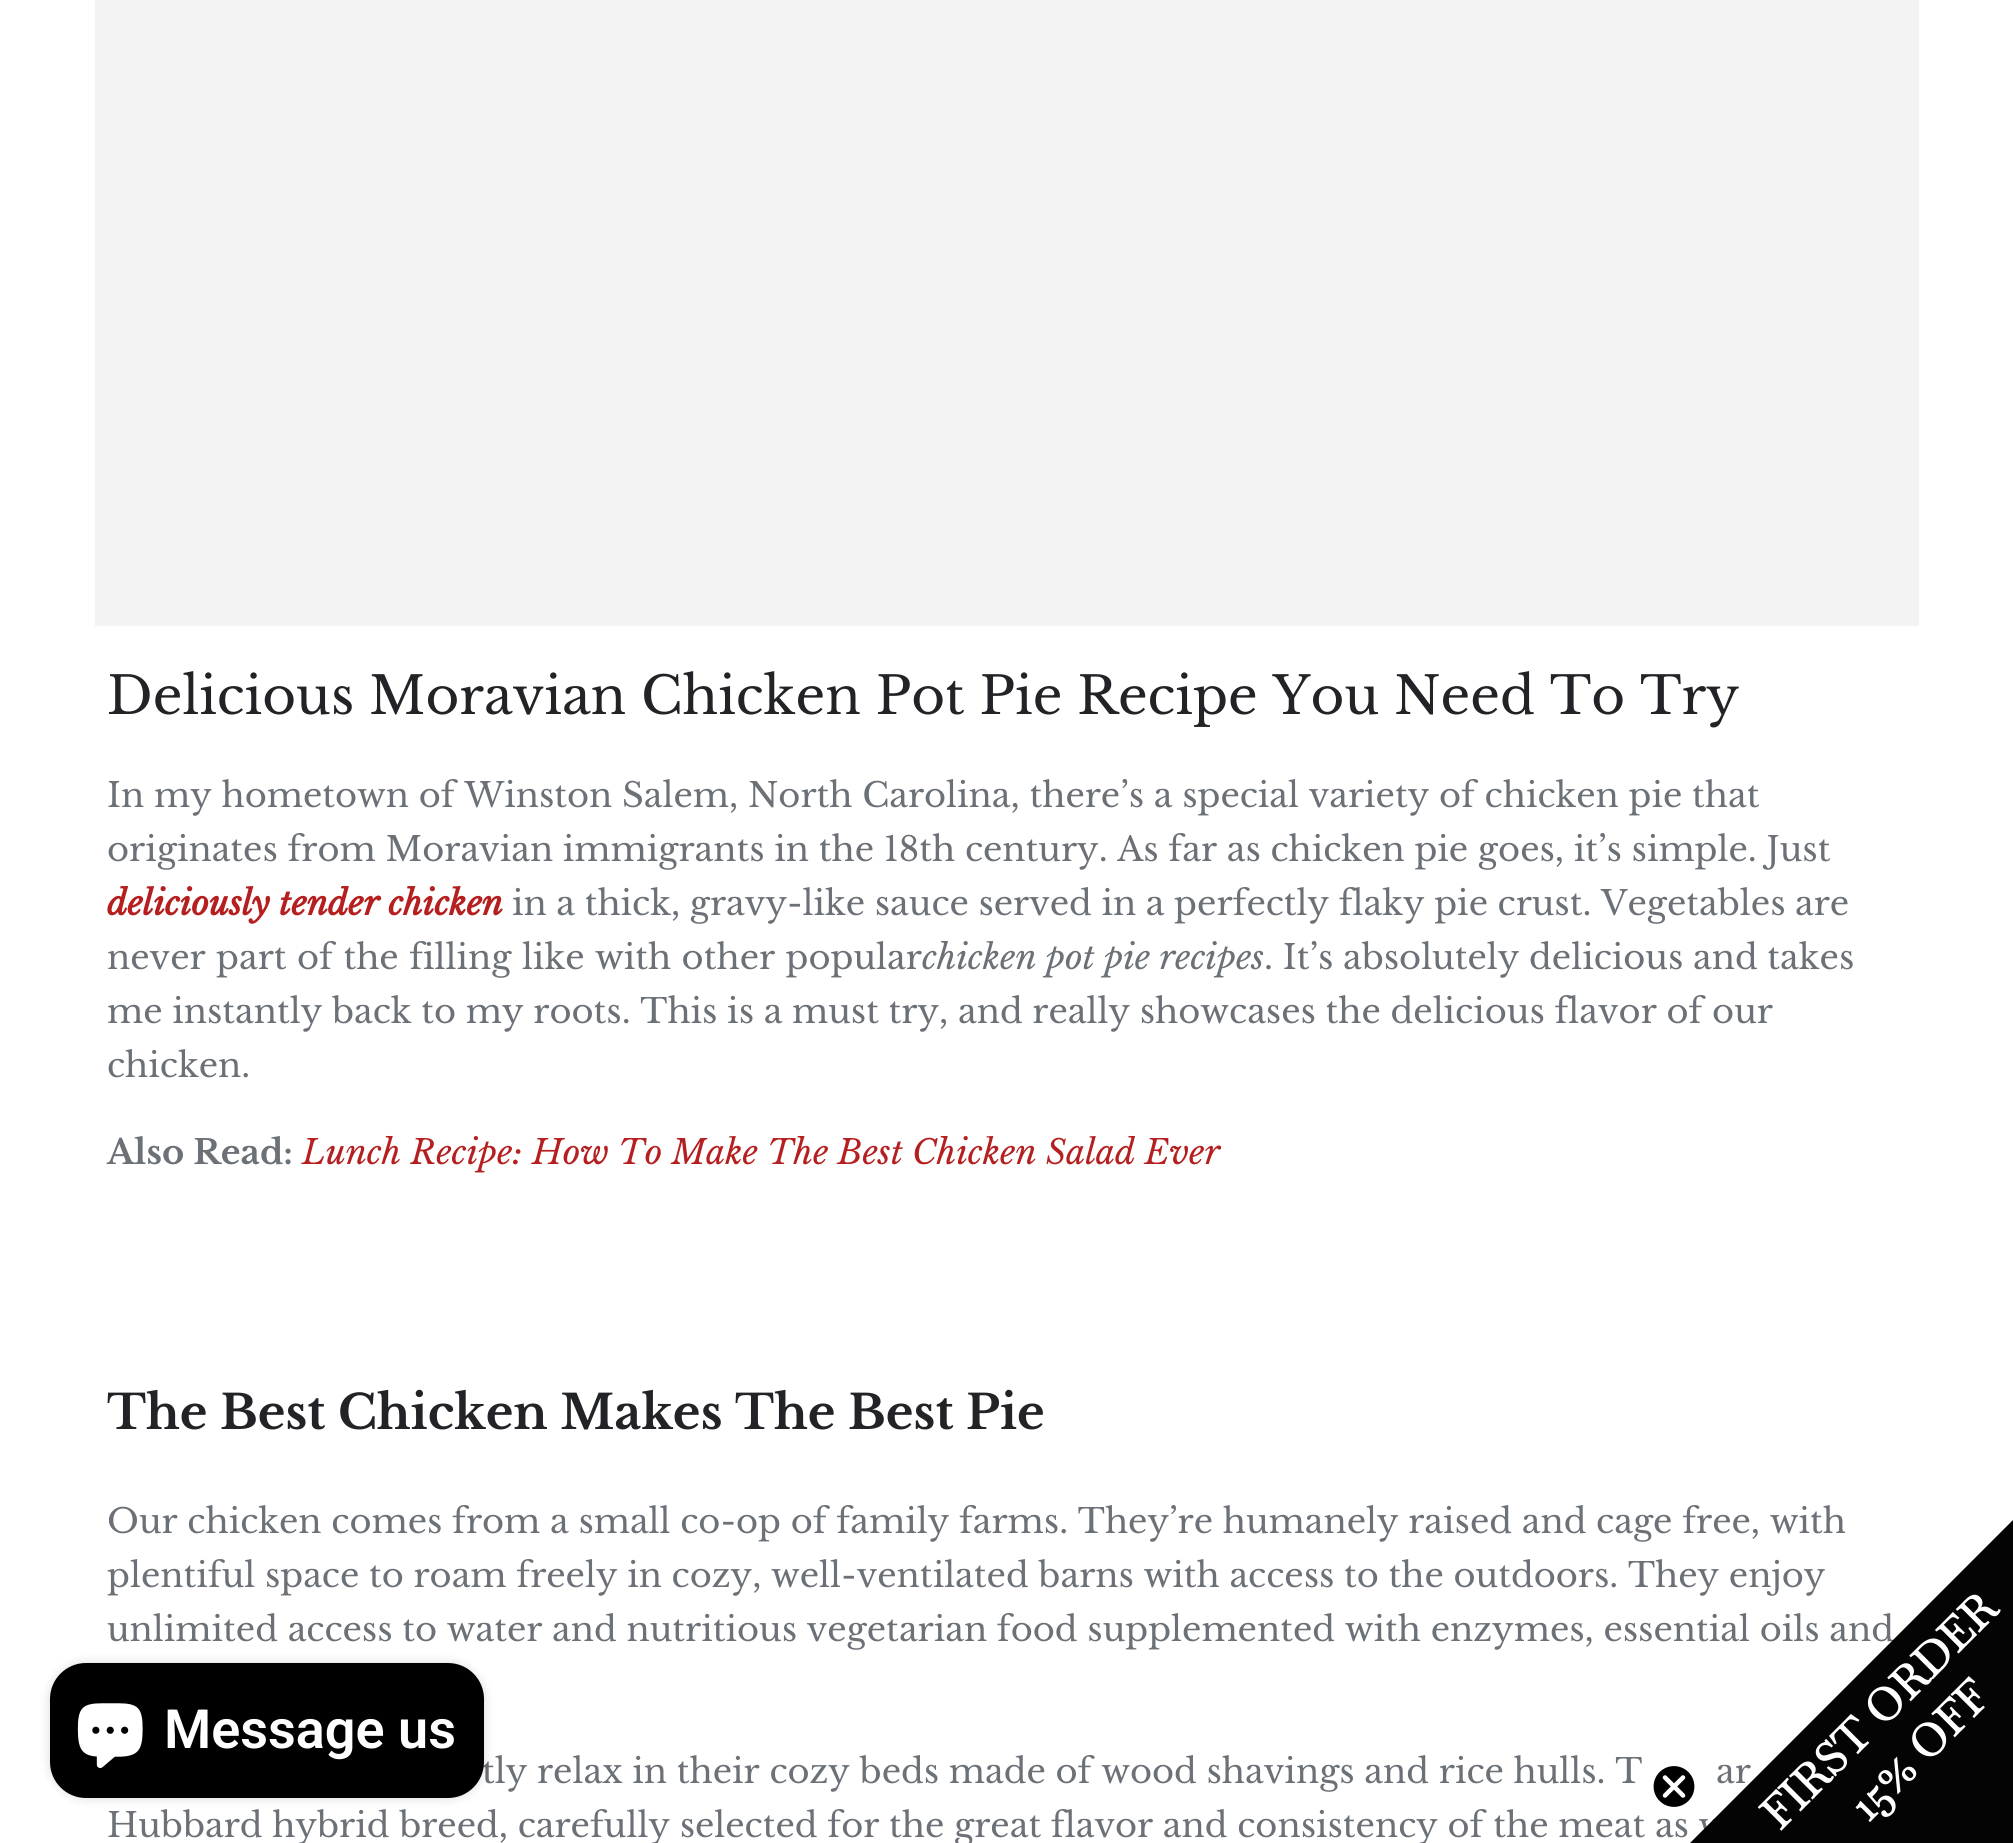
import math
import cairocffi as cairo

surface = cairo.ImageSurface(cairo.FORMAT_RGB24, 2013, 1843)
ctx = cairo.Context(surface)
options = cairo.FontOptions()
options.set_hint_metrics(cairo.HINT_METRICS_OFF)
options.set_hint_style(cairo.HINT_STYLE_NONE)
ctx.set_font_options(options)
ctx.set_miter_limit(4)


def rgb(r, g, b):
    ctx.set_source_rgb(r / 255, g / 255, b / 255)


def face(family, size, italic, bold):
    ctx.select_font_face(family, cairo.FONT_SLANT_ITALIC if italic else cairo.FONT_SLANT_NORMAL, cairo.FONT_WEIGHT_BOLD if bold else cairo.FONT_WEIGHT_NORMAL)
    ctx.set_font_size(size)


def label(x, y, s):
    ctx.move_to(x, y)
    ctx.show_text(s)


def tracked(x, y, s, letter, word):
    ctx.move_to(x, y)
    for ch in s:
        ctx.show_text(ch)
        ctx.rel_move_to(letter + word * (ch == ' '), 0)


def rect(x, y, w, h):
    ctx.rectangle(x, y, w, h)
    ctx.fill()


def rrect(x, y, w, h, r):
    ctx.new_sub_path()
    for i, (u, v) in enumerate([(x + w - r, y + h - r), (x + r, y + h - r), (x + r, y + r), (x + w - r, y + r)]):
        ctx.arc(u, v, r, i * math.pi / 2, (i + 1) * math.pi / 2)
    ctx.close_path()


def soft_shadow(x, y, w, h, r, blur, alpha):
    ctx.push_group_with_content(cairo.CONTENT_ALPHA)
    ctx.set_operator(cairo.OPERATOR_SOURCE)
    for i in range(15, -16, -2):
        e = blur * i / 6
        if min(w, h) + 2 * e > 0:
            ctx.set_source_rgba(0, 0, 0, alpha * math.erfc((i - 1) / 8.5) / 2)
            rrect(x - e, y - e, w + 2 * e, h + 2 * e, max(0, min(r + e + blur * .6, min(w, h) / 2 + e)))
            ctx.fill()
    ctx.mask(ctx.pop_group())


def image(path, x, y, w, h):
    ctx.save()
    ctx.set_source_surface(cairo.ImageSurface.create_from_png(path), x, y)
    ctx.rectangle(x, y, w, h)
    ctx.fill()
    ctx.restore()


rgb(255, 255, 255)
ctx.paint()
rgb(243, 243, 243)
rect(95, 0, 1824, 626)
face('Libre Baskerville', 51.75, 0, 0)
rgb(33, 35, 38)
label(107, 714, 'Delicious Moravian Chicken Pot Pie Recipe You Need To Try')
face('Libre Baskerville', 33.75, 0, 0)
rgb(107, 113, 119)
label(107, 807, 'In my hometown of Winston Salem, North Carolina, there’s a special variety of chicken pie that')
label(107, 861, 'originates from Moravian immigrants in the 18th century. As far as chicken pie goes, it’s simple. Just')
face('Libre Baskerville', 33.75, 1, 1)
rgb(181, 31, 31)
label(107, 915, 'deliciously tender chicken')
face('Libre Baskerville', 33.75, 0, 0)
rgb(107, 113, 119)
tracked(512, 915, 'in a thick, gravy-like sauce served in a perfectly flaky pie crust. Vegetables are', 0, -0.1)
tracked(107, 969, 'never part of the filling like with other popular', 0, 0.75)
face('Libre Baskerville', 33.75, 1, 0)
label(922, 969, 'chicken pot pie recipes')
face('Libre Baskerville', 33.75, 0, 0)
label(1264, 969, '. It’s absolutely delicious and takes')
label(107, 1023, 'me instantly back to my roots. This is a must try, and really showcases the delicious flavor of our')
label(107, 1077, 'chicken.')
face('Libre Baskerville', 33.75, 0, 1)
label(107, 1164, 'Also Read:')
face('Libre Baskerville', 33.75, 1, 0)
rgb(181, 31, 31)
label(302, 1164, 'Lunch Recipe: How To Make The Best Chicken Salad Ever')
face('Libre Baskerville', 47.25, 0, 1)
rgb(33, 35, 38)
label(107, 1429, 'The Best Chicken Makes The Best Pie')
face('Libre Baskerville', 33.75, 0, 0)
rgb(107, 113, 119)
label(107, 1533, 'Our chicken comes from a small co-op of family farms. They’re humanely raised and cage free, with')
label(107, 1587, 'plentiful space to roam freely in cozy, well-ventilated barns with access to the outdoors. They enjoy')
label(107, 1641, 'unlimited access to water and nutritious vegetarian food supplemented with enzymes, essential oils and')
label(482, 1783, 'tly relax in their cozy beds made of wood shavings and rice hulls. T')
label(1716, 1783, 'ar')
label(107, 1837, 'Hubbard hybrid breed, carefully selected for the great flavor and consistency of the meat as w')
rgb(0, 0, 0)
soft_shadow(50, 1663, 434, 135, 36, 5.5, 0.15)
rgb(0, 0, 0)
rrect(50, 1663, 434, 135, 36)
ctx.fill()
image('image0.png', 77, 1703, 66, 65)
face('Roboto SemiBold', 54, 0, 0)
rgb(255, 255, 255)
label(164, 1748, 'Message us')
rgb(4, 4, 4)
ctx.new_path()
ctx.move_to(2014, 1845)
ctx.line_to(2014, 1519)
ctx.line_to(1688, 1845)
ctx.close_path()
ctx.fill()
rgb(0, 0, 0)
ctx.arc(1674, 1786.5, 21.5, 0, 2 * math.pi)
ctx.fill()
ctx.save()
ctx.rectangle(1652, 1764, 45, 45)
ctx.clip()
ctx.arc(1674, 1786.5, 21.5, 0, 2 * math.pi)
rgb(255, 255, 255)
ctx.set_line_width(2.2)
ctx.stroke()
ctx.restore()
ctx.new_path()
ctx.move_to(1665, 1777.5)
ctx.line_to(1683, 1795.5)
ctx.move_to(1665, 1795.5)
ctx.line_to(1683, 1777.5)
ctx.close_path()
rgb(255, 255, 255)
ctx.set_line_width(4.5)
ctx.set_line_cap(cairo.LINE_CAP_ROUND)
ctx.set_line_join(cairo.LINE_JOIN_ROUND)
ctx.stroke()
face('Baskervville', 45, 0, 1)
ctx.save()
ctx.translate(1780, 1832)
ctx.rotate(-45 * math.pi / 180)
label(0, 0, 'FIRST ORDER')
ctx.restore()
ctx.save()
ctx.translate(1869, 1823)
ctx.rotate(-45 * math.pi / 180)
label(0, 0, '15% OFF')
ctx.restore()
surface.write_to_png('render.png')
